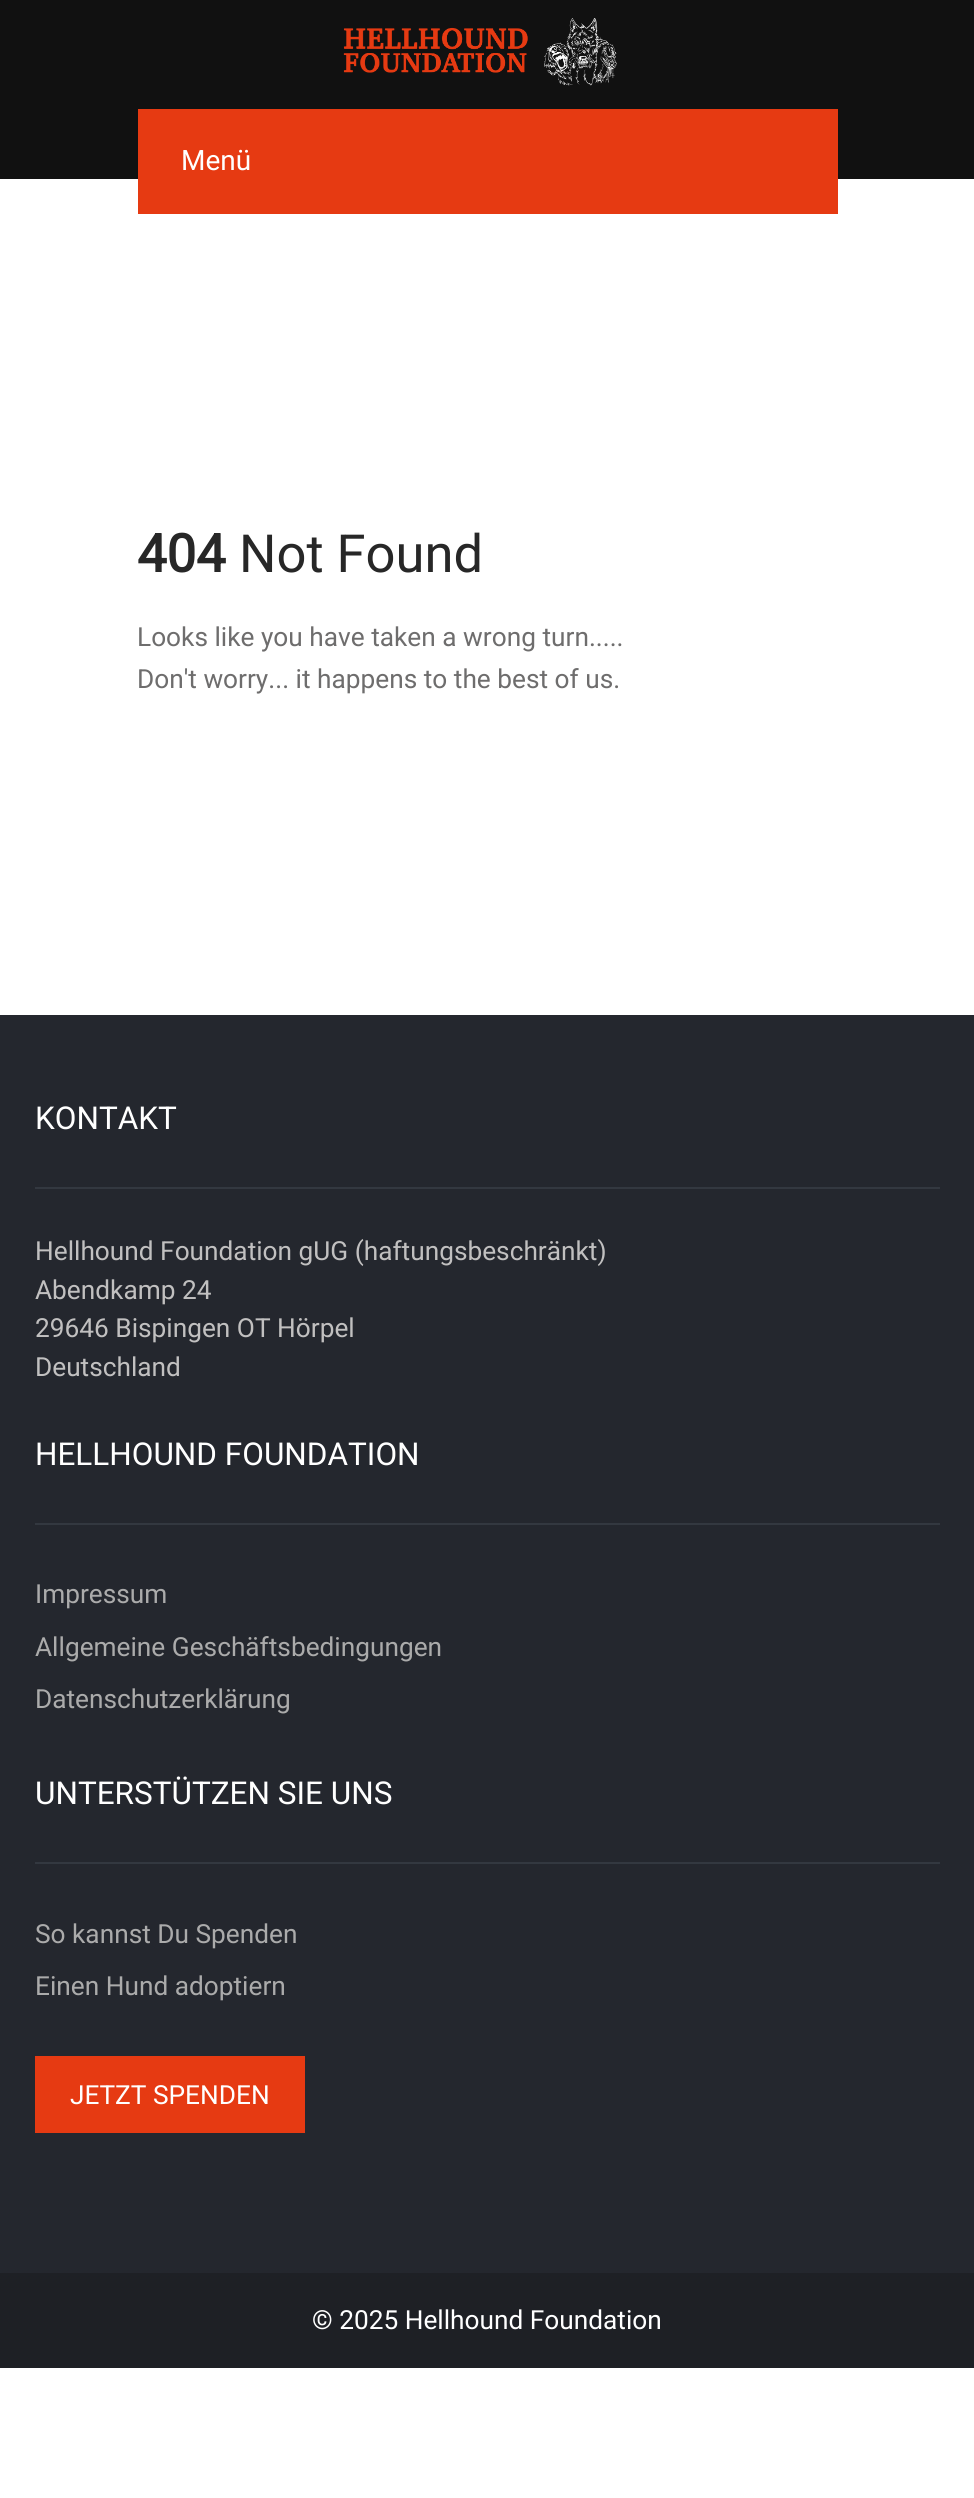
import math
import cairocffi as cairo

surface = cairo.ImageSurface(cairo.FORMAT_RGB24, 974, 2498)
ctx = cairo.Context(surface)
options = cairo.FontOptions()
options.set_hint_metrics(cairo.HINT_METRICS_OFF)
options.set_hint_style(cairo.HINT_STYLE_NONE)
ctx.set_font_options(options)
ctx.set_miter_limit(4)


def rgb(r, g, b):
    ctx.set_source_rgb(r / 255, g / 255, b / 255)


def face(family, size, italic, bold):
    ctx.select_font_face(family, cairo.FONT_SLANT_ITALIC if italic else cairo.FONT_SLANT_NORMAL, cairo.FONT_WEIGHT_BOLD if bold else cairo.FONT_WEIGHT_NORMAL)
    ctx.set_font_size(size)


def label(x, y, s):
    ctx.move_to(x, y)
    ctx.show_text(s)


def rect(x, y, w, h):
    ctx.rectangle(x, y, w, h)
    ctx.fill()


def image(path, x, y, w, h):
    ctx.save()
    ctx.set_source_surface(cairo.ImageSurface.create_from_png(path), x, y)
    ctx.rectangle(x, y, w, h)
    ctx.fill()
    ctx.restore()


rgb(255, 255, 255)
ctx.paint()
rgb(17, 17, 17)
rect(0, 0, 974, 179)
image('image0.png', 343, 18, 274, 68)
rgb(230, 58, 18)
rect(138, 109, 700, 105)
face('Roboto', 28, 0, 0)
rgb(255, 255, 255)
label(181, 170, 'Menü')
face('Roboto', 52.5, 0, 1)
rgb(39, 39, 39)
label(137, 572, '404')
face('Roboto', 52.5, 0, 0)
label(239, 572, 'Not Found')
face('Roboto', 26.25, 0, 0)
rgb(110, 109, 109)
label(137, 646, 'Looks like you have taken a wrong turn.....')
label(137, 688, 'Don\'t worry... it happens to the best of us.')
rgb(36, 39, 46)
rect(0, 1015, 974, 1258)
rgb(51, 56, 64)
rect(35, 1187, 905, 2)
face('Roboto', 31.5, 0, 0)
rgb(255, 255, 255)
label(35, 1129, 'KONTAKT')
face('Roboto', 26.25, 0, 0)
rgb(193, 192, 192)
label(35, 1260, 'Hellhound Foundation gUG (haftungsbeschränkt)')
label(35, 1299, 'Abendkamp 24')
label(35, 1337, '29646 Bispingen OT Hörpel')
label(35, 1376, 'Deutschland')
rgb(51, 56, 64)
rect(35, 1523, 905, 2)
face('Roboto', 31.5, 0, 0)
rgb(255, 255, 255)
label(35, 1465, 'HELLHOUND FOUNDATION')
face('Roboto', 26.25, 0, 0)
rgb(171, 171, 171)
label(35, 1603, 'Impressum')
label(35, 1656, 'Allgemeine Geschäftsbedingungen')
label(35, 1708, 'Datenschutzerklärung')
rgb(51, 56, 64)
rect(35, 1862, 905, 2)
face('Roboto', 31.5, 0, 0)
rgb(255, 255, 255)
label(35, 1804, 'UNTERSTÜTZEN SIE UNS')
face('Roboto', 26.25, 0, 0)
rgb(171, 171, 171)
label(35, 1943, 'So kannst Du Spenden')
label(35, 1995, 'Einen Hund adoptiern')
rgb(230, 58, 18)
rect(35, 2056, 270, 77)
rgb(255, 255, 255)
label(70, 2104, 'JETZT SPENDEN')
rgb(30, 32, 37)
rect(0, 2273, 974, 95)
rgb(255, 255, 255)
label(312, 2329, '© 2025 Hellhound Foundation')
surface.write_to_png('render.png')
